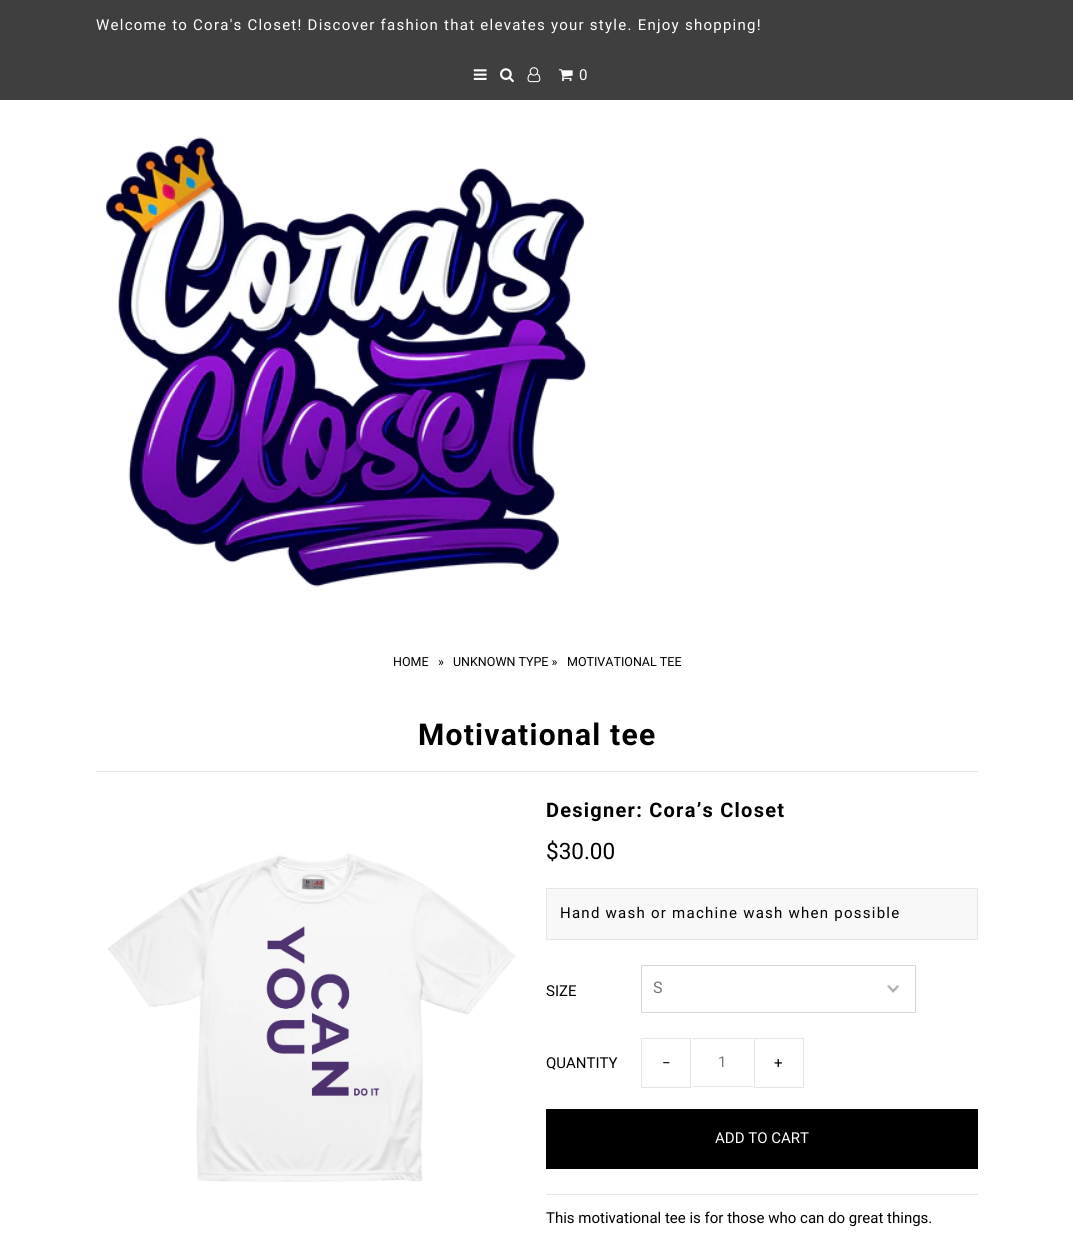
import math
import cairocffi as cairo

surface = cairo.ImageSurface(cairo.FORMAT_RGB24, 1073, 1240)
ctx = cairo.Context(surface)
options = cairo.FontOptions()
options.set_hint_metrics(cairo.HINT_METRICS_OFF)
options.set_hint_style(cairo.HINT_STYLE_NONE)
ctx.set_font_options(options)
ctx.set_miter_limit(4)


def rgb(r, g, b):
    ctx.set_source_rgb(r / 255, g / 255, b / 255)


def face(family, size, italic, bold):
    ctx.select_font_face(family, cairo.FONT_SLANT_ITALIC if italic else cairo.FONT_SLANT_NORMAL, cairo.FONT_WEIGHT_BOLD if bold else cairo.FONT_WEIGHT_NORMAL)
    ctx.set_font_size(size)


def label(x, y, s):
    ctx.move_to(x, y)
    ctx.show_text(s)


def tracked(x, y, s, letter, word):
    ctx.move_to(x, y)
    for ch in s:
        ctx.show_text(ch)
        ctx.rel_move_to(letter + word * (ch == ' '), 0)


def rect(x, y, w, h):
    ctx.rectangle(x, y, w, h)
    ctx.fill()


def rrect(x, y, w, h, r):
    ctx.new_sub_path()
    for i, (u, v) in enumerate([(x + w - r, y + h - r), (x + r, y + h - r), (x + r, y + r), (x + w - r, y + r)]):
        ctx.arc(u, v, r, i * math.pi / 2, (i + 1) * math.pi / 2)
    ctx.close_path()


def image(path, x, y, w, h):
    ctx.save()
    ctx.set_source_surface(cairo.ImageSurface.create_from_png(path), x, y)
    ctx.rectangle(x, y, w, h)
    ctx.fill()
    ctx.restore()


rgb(255, 255, 255)
ctx.paint()
rgb(63, 63, 63)
rect(0, 0, 1073, 100)
face('Roboto', 15, 0, 0)
rgb(255, 255, 255)
tracked(96, 30, 'Welcome to Cora\'s Closet! Discover fashion that elevates your style. Enjoy shopping!', 1.25, 0)
image('image0.png', 473, 69, 14, 11)
image('image1.png', 500, 68, 14, 15)
image('image2.png', 527, 67, 14, 16)
image('image3.png', 558, 69, 15, 13)
tracked(579, 80, '0', 1.25, 0)
image('image4.png', 105, 137, 482, 450)
face('Roboto', 12.5, 0, 0)
rgb(0, 0, 0)
label(393, 666, 'HOME')
label(438, 666, '»')
label(453, 666, 'UNKNOWN TYPE »')
label(567, 666, 'MOTIVATIONAL TEE')
rgb(229, 229, 229)
rect(96, 771, 882, 1)
face('Roboto', 30, 0, 1)
rgb(0, 0, 0)
tracked(418, 745, 'Motivational tee', 1.25, 0)
image('image5.png', 107, 853, 409, 329)
face('Roboto', 20, 0, 1)
tracked(546, 817, 'Designer: Cora’s Closet', 1.25, 0)
face('Roboto', 22.5, 0, 0)
label(546, 859, '$30.00')
rgb(248, 248, 248)
ctx.rectangle(546.5, 888.5, 431, 51)
ctx.fill_preserve()
rgb(229, 229, 229)
ctx.set_line_width(1)
ctx.stroke()
face('Roboto', 15, 0, 0)
rgb(0, 0, 0)
tracked(560, 918, 'Hand wash or machine wash when possible', 1.25, 0)
rgb(229, 229, 229)
rect(546, 1194, 432, 1)
rgb(0, 0, 0)
label(546, 996, 'SIZE')
image('image6.png', 887, 985, 12, 8)
rrect(641.5, 965.5, 274, 47, 0.5)
rgb(213, 213, 213)
ctx.stroke()
face('Roboto', 16, 0, 0)
rgb(119, 119, 119)
label(653, 993, 'S')
face('Roboto', 15, 0, 0)
rgb(0, 0, 0)
label(546, 1068, 'QUANTITY')
ctx.rectangle(641.5, 1038.5, 49, 49)
rgb(229, 229, 229)
ctx.stroke()
rgb(0, 0, 0)
label(662, 1068, '−')
rgb(229, 229, 229)
rect(693, 1038, 60, 1)
rect(693, 1086, 60, 1)
rgb(119, 119, 119)
label(718, 1067, '1')
ctx.rectangle(754.5, 1038.5, 49, 49)
rgb(229, 229, 229)
ctx.stroke()
rgb(0, 0, 0)
label(774, 1068, '+')
rect(546, 1109, 432, 60)
rgb(255, 255, 255)
label(715, 1143, 'ADD TO CART')
rgb(0, 0, 0)
label(546, 1223, 'This motivational tee is for those who can do great things.')
surface.write_to_png('render.png')
